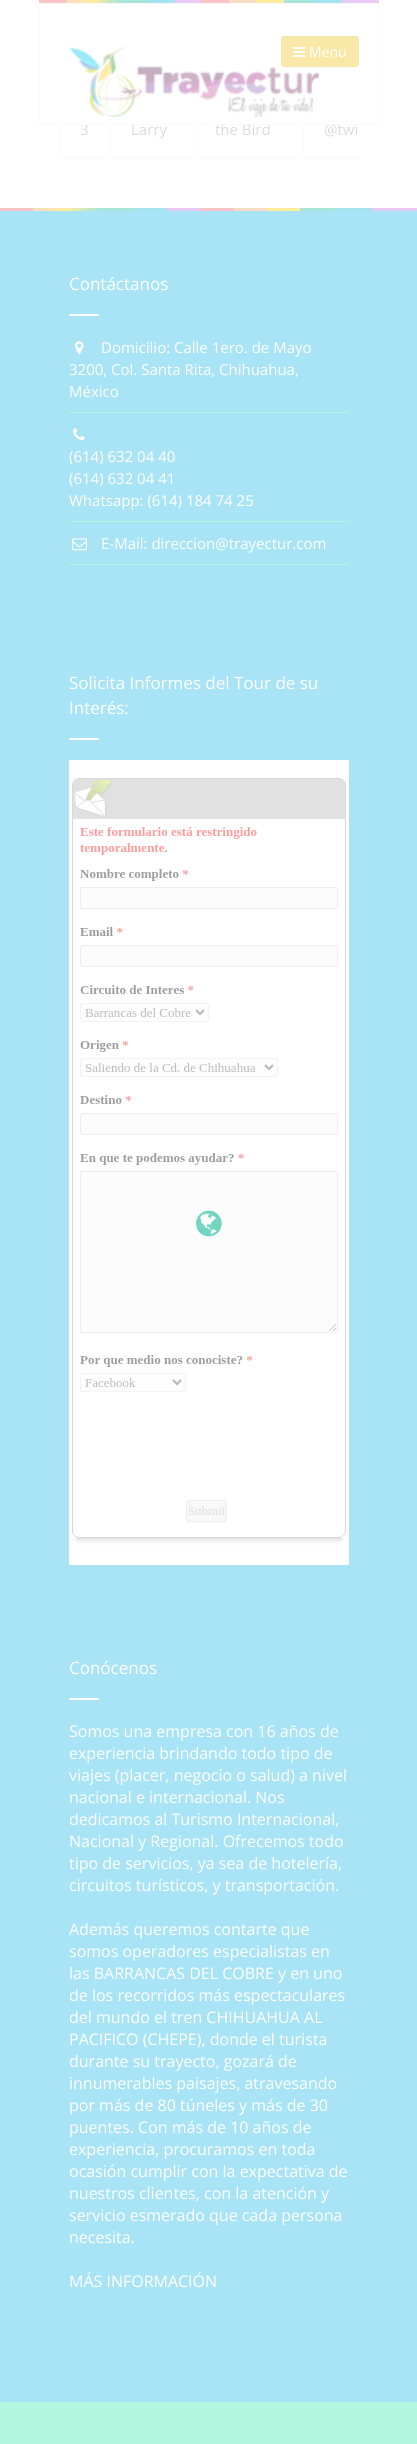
import math
import cairocffi as cairo

surface = cairo.ImageSurface(cairo.FORMAT_RGB24, 417, 2444)
ctx = cairo.Context(surface)
options = cairo.FontOptions()
options.set_hint_metrics(cairo.HINT_METRICS_OFF)
options.set_hint_style(cairo.HINT_STYLE_NONE)
ctx.set_font_options(options)
ctx.set_miter_limit(4)


def rgb(r, g, b):
    ctx.set_source_rgb(r / 255, g / 255, b / 255)


def face(family, size, italic, bold):
    ctx.select_font_face(family, cairo.FONT_SLANT_ITALIC if italic else cairo.FONT_SLANT_NORMAL, cairo.FONT_WEIGHT_BOLD if bold else cairo.FONT_WEIGHT_NORMAL)
    ctx.set_font_size(size)


def label(x, y, s):
    ctx.move_to(x, y)
    ctx.show_text(s)


def rect(x, y, w, h):
    ctx.rectangle(x, y, w, h)
    ctx.fill()


def rrect(x, y, w, h, r):
    ctx.new_sub_path()
    for i, (u, v) in enumerate([(x + w - r, y + h - r), (x + r, y + h - r), (x + r, y + r), (x + w - r, y + r)]):
        ctx.arc(u, v, r, i * math.pi / 2, (i + 1) * math.pi / 2)
    ctx.close_path()


def image(path, x, y, w, h):
    ctx.save()
    ctx.set_source_surface(cairo.ImageSurface.create_from_png(path), x, y)
    ctx.rectangle(x, y, w, h)
    ctx.fill()
    ctx.restore()


rgb(255, 255, 255)
ctx.paint()
gradient = cairo.LinearGradient(39, 1.5, 379, 1.5)
gradient.add_color_stop_rgba(0, 0.988, 0.765, 0.78, 1)
gradient.add_color_stop_rgba(0.08, 0.988, 0.765, 0.78, 1)
gradient.add_color_stop_rgba(0.08, 0.98, 0.863, 0.773, 1)
gradient.add_color_stop_rgba(0.16, 1, 0.929, 0.616, 1)
gradient.add_color_stop_rgba(0.24, 0.651, 0.898, 0.847, 1)
gradient.add_color_stop_rgba(0.32, 0.651, 0.898, 0.847, 1)
gradient.add_color_stop_rgba(0.32, 0.639, 0.894, 0.937, 1)
gradient.add_color_stop_rgba(0.4, 0.639, 0.894, 0.937, 1)
gradient.add_color_stop_rgba(0.4, 0.91, 0.792, 0.957, 1)
gradient.add_color_stop_rgba(0.48, 0.91, 0.792, 0.957, 1)
gradient.add_color_stop_rgba(0.48, 0.988, 0.765, 0.78, 1)
gradient.add_color_stop_rgba(0.56, 0.988, 0.765, 0.78, 1)
gradient.add_color_stop_rgba(0.56, 0.98, 0.863, 0.773, 1)
gradient.add_color_stop_rgba(0.64, 0.98, 0.863, 0.773, 1)
gradient.add_color_stop_rgba(0.64, 1, 0.929, 0.616, 1)
gradient.add_color_stop_rgba(0.72, 1, 0.929, 0.616, 1)
gradient.add_color_stop_rgba(0.72, 0.651, 0.898, 0.847, 1)
gradient.add_color_stop_rgba(0.8, 0.651, 0.898, 0.847, 1)
gradient.add_color_stop_rgba(0.8, 0.639, 0.894, 0.937, 1)
gradient.add_color_stop_rgba(0.89, 0.639, 0.894, 0.937, 1)
gradient.add_color_stop_rgba(0.89, 0.91, 0.792, 0.957, 1)
gradient.add_color_stop_rgba(1, 0.91, 0.792, 0.957, 1)
ctx.set_source(gradient)
rect(39, 0, 340, 3)
face('Open Sans', 15, 0, 0)
rgb(220, 220, 220)
label(215, 135, 'the Bird')
rgb(255, 255, 255)
rect(221, 123, 49, 1)
rgb(220, 220, 220)
label(80, 135, '3')
label(131, 135, 'Larry')
label(324, 135, '@twi')
ctx.rectangle(39.5, 3.5, 339, 121)
rgb(250, 250, 250)
ctx.set_line_width(1)
ctx.stroke()
image('image0.png', 68, 44, 251, 73)
rgb(249, 232, 168)
rrect(281, 36, 78, 31, 3)
ctx.fill()
image('image1.png', 293, 47, 12, 10)
face('Open Sans', 14, 0, 0)
rgb(255, 255, 255)
label(309, 57, 'Menu')
rgb(250, 250, 250)
rect(303, 157, 56, 1)
rect(303, 125, 1, 33)
rect(194, 157, 110, 1)
rect(194, 125, 1, 33)
rect(110, 157, 85, 1)
rect(110, 125, 1, 33)
rect(59, 157, 52, 1)
rect(59, 125, 1, 33)
gradient = cairo.LinearGradient(0, 210, 417, 210)
gradient.add_color_stop_rgba(0, 0.988, 0.765, 0.78, 1)
gradient.add_color_stop_rgba(0.08, 0.988, 0.765, 0.78, 1)
gradient.add_color_stop_rgba(0.08, 0.98, 0.863, 0.773, 1)
gradient.add_color_stop_rgba(0.16, 1, 0.929, 0.616, 1)
gradient.add_color_stop_rgba(0.24, 0.651, 0.898, 0.847, 1)
gradient.add_color_stop_rgba(0.32, 0.651, 0.898, 0.847, 1)
gradient.add_color_stop_rgba(0.32, 0.639, 0.894, 0.937, 1)
gradient.add_color_stop_rgba(0.4, 0.639, 0.894, 0.937, 1)
gradient.add_color_stop_rgba(0.4, 0.91, 0.792, 0.957, 1)
gradient.add_color_stop_rgba(0.48, 0.91, 0.792, 0.957, 1)
gradient.add_color_stop_rgba(0.48, 0.988, 0.765, 0.78, 1)
gradient.add_color_stop_rgba(0.56, 0.988, 0.765, 0.78, 1)
gradient.add_color_stop_rgba(0.56, 0.98, 0.863, 0.773, 1)
gradient.add_color_stop_rgba(0.64, 0.98, 0.863, 0.773, 1)
gradient.add_color_stop_rgba(0.64, 1, 0.929, 0.616, 1)
gradient.add_color_stop_rgba(0.72, 1, 0.929, 0.616, 1)
gradient.add_color_stop_rgba(0.72, 0.651, 0.898, 0.847, 1)
gradient.add_color_stop_rgba(0.8, 0.651, 0.898, 0.847, 1)
gradient.add_color_stop_rgba(0.8, 0.639, 0.894, 0.937, 1)
gradient.add_color_stop_rgba(0.89, 0.639, 0.894, 0.937, 1)
gradient.add_color_stop_rgba(0.89, 0.91, 0.792, 0.957, 1)
gradient.add_color_stop_rgba(1, 0.91, 0.792, 0.957, 1)
ctx.set_source(gradient)
rect(0, 208, 417, 3)
rgb(169, 228, 246)
rect(0, 211, 417, 2191)
face('Open Sans', 17, 0, 0)
rgb(255, 255, 255)
label(69, 290, 'Contáctanos')
rect(69, 314, 30, 2)
rgb(179, 246, 223)
rect(69, 412, 280, 1)
image('image2.png', 75, 341, 9, 14)
face('Open Sans', 15, 0, 0)
rgb(255, 255, 255)
label(101, 353, 'Domicilio: Calle 1ero. de Mayo')
label(69, 375, '3200, Col. Santa Rita, Chihuahua,')
label(69, 397, 'México')
rgb(179, 246, 223)
rect(69, 521, 280, 1)
image('image3.png', 73, 428, 12, 13)
rgb(255, 255, 255)
label(69, 462, '(614) 632 04 40')
label(69, 484, '(614) 632 04 41')
label(69, 506, 'Whatsapp: (614) 184 74 25')
rgb(179, 246, 223)
rect(69, 564, 280, 1)
image('image4.png', 72, 538, 15, 13)
rgb(255, 255, 255)
label(101, 549, 'E-Mail: direccion@trayectur.com')
face('Open Sans', 17, 0, 0)
label(69, 689, 'Solicita Informes del Tour de su')
label(69, 714, 'Interés:')
rect(69, 738, 30, 2)
image('image5.png', 69, 760, 280, 805)
label(69, 1674, 'Conócenos')
rect(69, 1698, 30, 2)
face('Open Sans', 16, 0, 0)
label(69, 1737, 'Somos una empresa con 16 años de')
label(69, 1759, 'experiencia brindando todo tipo de')
label(69, 1781, 'viajes (placer, negocio o salud) a nivel')
label(69, 1803, 'nacional e internacional. Nos')
label(69, 1825, 'dedicamos al Turismo Internacional,')
label(69, 1847, 'Nacional y Regional. Ofrecemos todo')
label(69, 1869, 'tipo de servicios, ya sea de hotelería,')
label(69, 1891, 'circuitos turísticos, y transportación.')
label(69, 1935, 'Además queremos contarte que')
label(69, 1957, 'somos operadores especialistas en')
label(69, 1979, 'las BARRANCAS DEL COBRE y en uno')
label(69, 2001, 'de los recorridos más espectaculares')
label(69, 2023, 'del mundo el tren CHIHUAHUA AL')
label(69, 2045, 'PACIFICO (CHEPE), donde el turista')
label(69, 2067, 'durante su trayecto, gozará de')
label(69, 2089, 'innumerables paisajes, atravesando')
label(69, 2111, 'por más de 80 túneles y más de 30')
label(69, 2133, 'puentes. Con más de 10 años de')
label(69, 2155, 'experiencia, procuramos en toda')
label(69, 2177, 'ocasión cumplir con la expectativa de')
label(69, 2199, 'nuestros clientes, con la atención y')
label(69, 2221, 'servicio esmerado que cada persona')
label(69, 2243, 'necesita.')
label(69, 2287, 'MÁS INFORMACIÓN')
rgb(179, 246, 223)
rect(0, 2402, 417, 42)
image('image6.png', 196, 1210, 26, 27)
surface.write_to_png('render.png')
